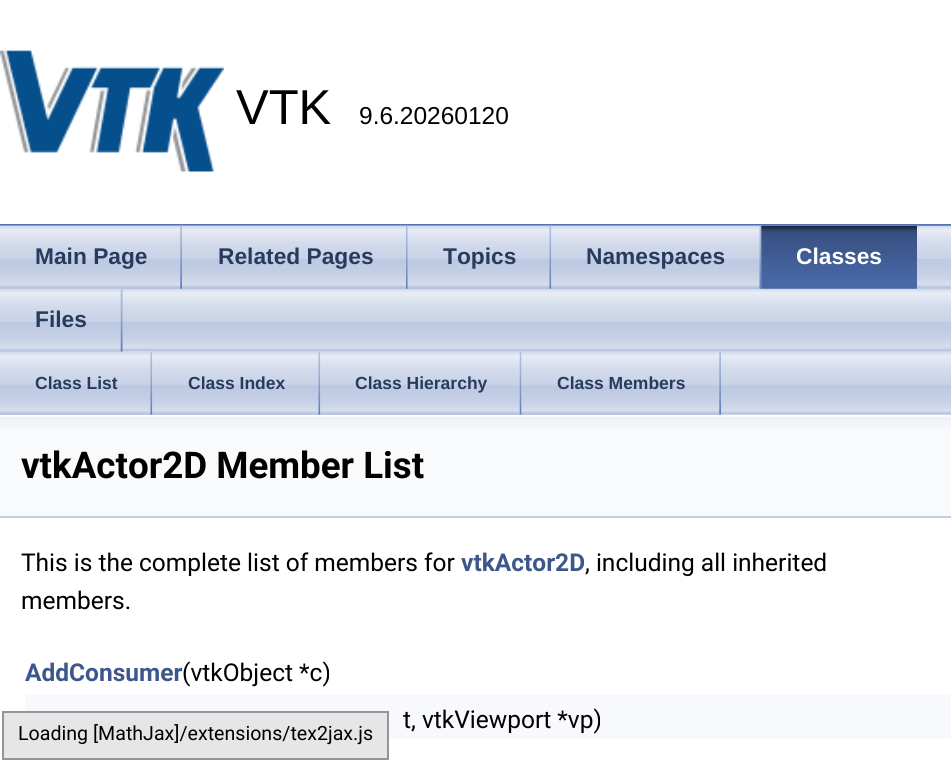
import math
import cairocffi as cairo

surface = cairo.ImageSurface(cairo.FORMAT_RGB24, 951, 763)
ctx = cairo.Context(surface)
options = cairo.FontOptions()
options.set_hint_metrics(cairo.HINT_METRICS_OFF)
options.set_hint_style(cairo.HINT_STYLE_NONE)
ctx.set_font_options(options)
ctx.set_miter_limit(4)


def rgb(r, g, b):
    ctx.set_source_rgb(r / 255, g / 255, b / 255)


def face(family, size, italic, bold):
    ctx.select_font_face(family, cairo.FONT_SLANT_ITALIC if italic else cairo.FONT_SLANT_NORMAL, cairo.FONT_WEIGHT_BOLD if bold else cairo.FONT_WEIGHT_NORMAL)
    ctx.set_font_size(size)


def label(x, y, s):
    ctx.move_to(x, y)
    ctx.show_text(s)


def rect(x, y, w, h):
    ctx.rectangle(x, y, w, h)
    ctx.fill()


def image(path, x, y, w, h):
    ctx.save()
    ctx.set_source_surface(cairo.ImageSurface.create_from_png(path), x, y)
    ctx.rectangle(x, y, w, h)
    ctx.fill()
    ctx.restore()


rgb(255, 255, 255)
ctx.paint()
rgb(83, 115, 180)
rect(0, 224, 951, 2)
image('image0.png', 0, 50, 224, 122)
face('Liberation Sans', 49, 0, 0)
rgb(0, 0, 0)
label(236, 124, 'VTK')
face('Liberation Sans', 24.5, 0, 0)
label(359, 124, '9.6.20260120')
image('image1.png', 0, 225, 951, 127)
image('image2.png', 0, 225, 182, 64)
image('image3.png', 180, 225, 2, 64)
face('Liberation Sans', 22.75, 0, 1)
rgb(40, 58, 93)
label(35, 264, 'Main Page')
image('image4.png', 182, 225, 226, 64)
image('image5.png', 406, 225, 2, 64)
label(218, 264, 'Related Pages')
image('image6.png', 407, 225, 145, 64)
image('image7.png', 549, 225, 3, 64)
label(443, 264, 'Topics')
image('image8.png', 551, 225, 211, 64)
image('image7.png', 759, 225, 3, 64)
label(586, 264, 'Namespaces')
image('image9.png', 761, 225, 156, 64)
image('image10.png', 761, 225, 156, 64)
rgb(255, 255, 255)
label(796, 264, 'Classes')
image('image11.png', 0, 288, 123, 64)
image('image12.png', 120, 289, 3, 63)
rgb(40, 58, 93)
label(35, 327, 'Files')
image('image13.png', 0, 352, 951, 63)
image('image14.png', 0, 351, 152, 64)
image('image15.png', 150, 351, 3, 64)
face('Liberation Sans', 17.5, 0, 1)
label(35, 389, 'Class List')
image('image16.png', 152, 352, 168, 63)
image('image17.png', 318, 351, 3, 64)
label(188, 389, 'Class Index')
image('image18.png', 320, 352, 202, 63)
image('image19.png', 519, 351, 3, 64)
label(355, 389, 'Class Hierarchy')
image('image20.png', 521, 352, 200, 63)
image('image21.png', 719, 351, 2, 64)
label(557, 389, 'Class Members')
rgb(249, 250, 252)
rect(0, 429, 951, 87)
image('image22.png', 0, 414, 951, 15)
rgb(196, 207, 229)
rect(0, 516, 951, 2)
face('Roboto', 36.75, 0, 1)
rgb(0, 0, 0)
label(21, 478, 'vtkActor2D Member List')
face('Roboto', 24.5, 0, 0)
label(21, 571, 'This is the complete list of members for')
face('Roboto', 24.5, 0, 1)
rgb(61, 87, 140)
label(461, 571, 'vtkActor2D')
face('Roboto', 24.5, 0, 0)
rgb(0, 0, 0)
label(585, 571, ', including all inherited')
label(21, 609, 'members.')
face('Roboto', 24.5, 0, 1)
rgb(61, 87, 140)
label(25, 681, 'AddConsumer')
face('Roboto', 24.5, 0, 0)
rgb(0, 0, 0)
label(182, 681, '(vtkObject *c)')
rgb(248, 249, 252)
rect(25, 695, 926, 44)
rgb(0, 0, 0)
label(403, 728, 't, vtkViewport *vp)')
rgb(230, 230, 230)
ctx.rectangle(3, 712, 385, 47)
ctx.fill_preserve()
rgb(149, 149, 149)
ctx.stroke()
face('Roboto', 19.6, 0, 0)
rgb(0, 0, 0)
label(18, 740, 'Loading [MathJax]/extensions/tex2jax.js')
surface.write_to_png('render.png')
